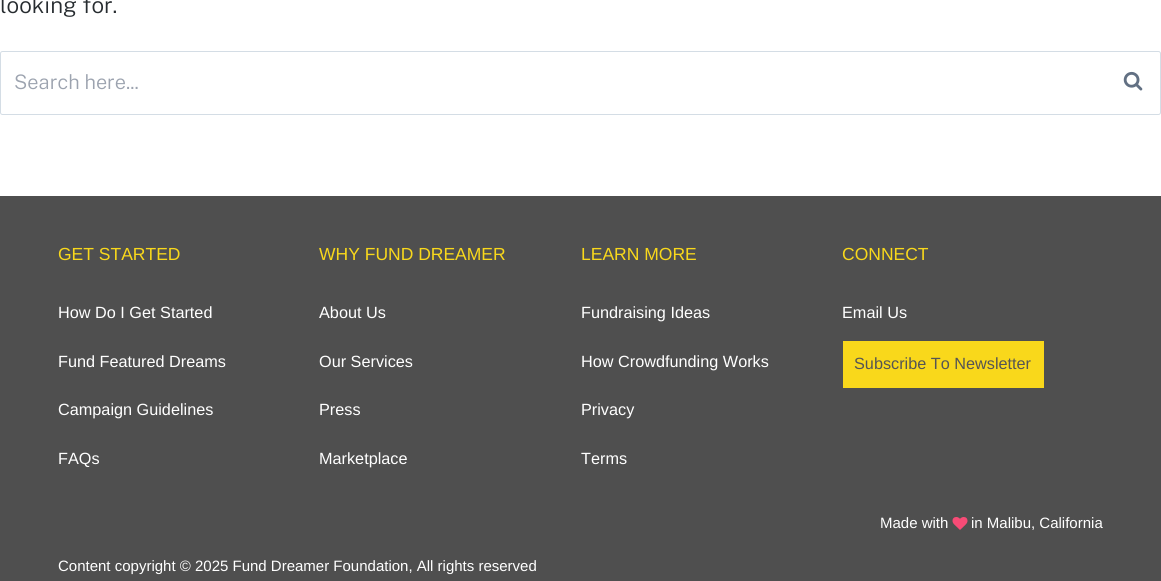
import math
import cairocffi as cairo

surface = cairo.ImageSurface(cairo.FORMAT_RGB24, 1161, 581)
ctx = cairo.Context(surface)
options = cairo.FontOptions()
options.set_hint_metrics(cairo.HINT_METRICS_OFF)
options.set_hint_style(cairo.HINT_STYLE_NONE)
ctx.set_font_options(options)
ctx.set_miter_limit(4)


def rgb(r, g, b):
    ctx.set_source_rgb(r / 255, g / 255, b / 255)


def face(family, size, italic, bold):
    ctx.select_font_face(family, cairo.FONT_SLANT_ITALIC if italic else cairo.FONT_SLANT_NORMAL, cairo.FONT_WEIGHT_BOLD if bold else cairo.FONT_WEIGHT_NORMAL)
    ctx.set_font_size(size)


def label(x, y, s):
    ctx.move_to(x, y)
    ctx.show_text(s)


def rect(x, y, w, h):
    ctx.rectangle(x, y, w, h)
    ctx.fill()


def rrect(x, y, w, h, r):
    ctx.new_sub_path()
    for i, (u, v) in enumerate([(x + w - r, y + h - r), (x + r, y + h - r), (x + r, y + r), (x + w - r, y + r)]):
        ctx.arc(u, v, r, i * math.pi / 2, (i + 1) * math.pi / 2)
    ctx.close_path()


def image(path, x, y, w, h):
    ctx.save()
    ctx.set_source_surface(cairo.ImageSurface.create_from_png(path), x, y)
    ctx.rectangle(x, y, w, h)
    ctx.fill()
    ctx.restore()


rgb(255, 255, 255)
ctx.paint()
face('Public Sans Light', 22.5, 0, 0)
rgb(39, 44, 48)
label(0, 13, 'looking for.')
rrect(0.5, 51.5, 1160, 63, 2)
rgb(212, 221, 229)
ctx.set_line_width(1)
ctx.stroke()
face('Public Sans Light', 20, 0, 0)
rgb(156, 163, 175)
label(14, 89, 'Search here...')
image('image0.png', 1123, 71, 20, 20)
rgb(79, 79, 79)
rect(0, 196, 1161, 385)
face('Liberation Sans', 17.5, 0, 0)
rgb(249, 216, 27)
label(58, 260, 'GET STARTED')
face('Liberation Sans', 16.25, 0, 0)
rgb(255, 255, 255)
label(58, 318, 'How Do I Get Started')
label(58, 367, 'Fund Featured Dreams')
label(58, 415, 'Campaign Guidelines')
label(58, 464, 'FAQs')
face('Liberation Sans', 17.5, 0, 0)
rgb(249, 216, 27)
label(319, 260, 'WHY FUND DREAMER')
face('Liberation Sans', 16.25, 0, 0)
rgb(255, 255, 255)
label(319, 318, 'About Us')
label(319, 367, 'Our Services')
label(319, 415, 'Press')
label(319, 464, 'Marketplace')
face('Liberation Sans', 17.5, 0, 0)
rgb(249, 216, 27)
label(581, 260, 'LEARN MORE')
face('Liberation Sans', 16.25, 0, 0)
rgb(255, 255, 255)
label(581, 318, 'Fundraising Ideas')
label(581, 367, 'How Crowdfunding Works')
label(581, 415, 'Privacy')
label(581, 464, 'Terms')
face('Liberation Sans', 17.5, 0, 0)
rgb(249, 216, 27)
label(842, 260, 'CONNECT')
face('Liberation Sans', 16.25, 0, 0)
rgb(255, 255, 255)
label(842, 318, 'Email Us')
rgb(249, 216, 27)
rect(843, 341, 201, 47)
rgb(85, 85, 85)
label(854, 369, 'Subscribe To Newsletter')
face('Liberation Sans', 15, 0, 0)
rgb(255, 255, 255)
label(880, 528, 'Made with')
image('image1.png', 952, 517, 16, 13)
label(971, 528, 'in Malibu, California')
label(58, 571, 'Content copyright © 2025 Fund Dreamer Foundation, All rights reserved')
surface.write_to_png('render.png')
